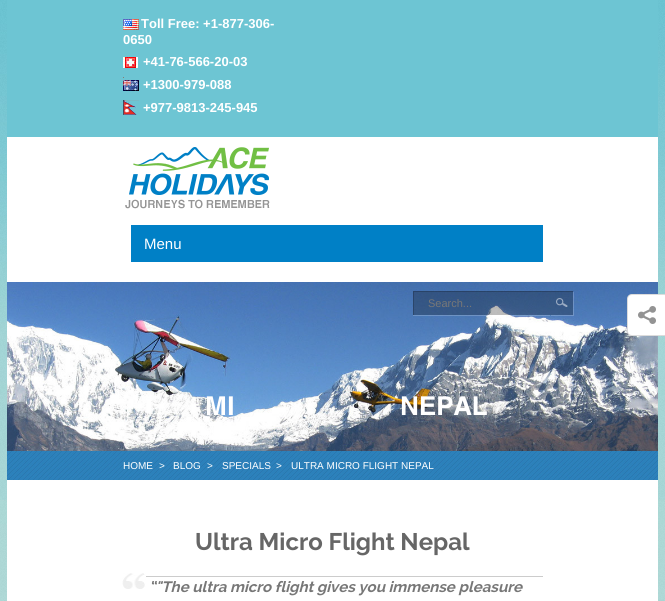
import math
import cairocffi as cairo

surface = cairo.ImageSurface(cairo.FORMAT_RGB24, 665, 601)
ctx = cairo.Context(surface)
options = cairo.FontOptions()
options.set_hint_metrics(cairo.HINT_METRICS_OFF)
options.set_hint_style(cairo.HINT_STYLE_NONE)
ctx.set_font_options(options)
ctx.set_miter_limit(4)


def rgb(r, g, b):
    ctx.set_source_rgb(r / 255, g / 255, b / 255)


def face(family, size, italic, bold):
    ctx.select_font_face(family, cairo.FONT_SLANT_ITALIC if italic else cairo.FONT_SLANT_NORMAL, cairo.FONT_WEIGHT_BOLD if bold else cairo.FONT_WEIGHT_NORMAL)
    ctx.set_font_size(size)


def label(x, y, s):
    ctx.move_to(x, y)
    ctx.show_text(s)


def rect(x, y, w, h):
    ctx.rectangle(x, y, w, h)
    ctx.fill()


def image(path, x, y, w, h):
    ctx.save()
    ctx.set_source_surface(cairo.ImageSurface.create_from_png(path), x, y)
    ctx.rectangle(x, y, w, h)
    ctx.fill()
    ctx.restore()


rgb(255, 255, 255)
ctx.paint()
image('image0.png', 0, 0, 665, 601)
rgb(109, 197, 211)
rect(7, 0, 651, 137)
image('image1.png', 123, 19, 16, 11)
face('Liberation Sans', 13, 0, 1)
rgb(255, 255, 255)
label(141, 28, 'Toll Free: +1-877-306-')
label(123, 44, '0650')
image('image2.png', 123, 57, 15, 11)
label(143, 66, '+41-76-566-20-03')
image('image3.png', 123, 77, 16, 14)
label(143, 89, '+1300-979-088')
image('image4.png', 123, 100, 16, 15)
label(143, 112, '+977-9813-245-945')
image('image7.png', 7, 282, 651, 169)
image('image5.png', 627, 294, 38, 42)
rect(7, 137, 651, 145)
image('image6.png', 125, 147, 145, 62)
rgb(0, 128, 198)
rect(131, 225, 412, 37)
face('Liberation Sans', 15, 0, 0)
rgb(255, 255, 255)
label(144, 249, 'Menu')
ctx.set_source_rgba(1, 1, 1, 0.2)
rect(413, 315, 137, 1)
ctx.set_source_rgba(0, 0, 0, 0.26)
rect(413, 291, 137, 24)
ctx.save()
ctx.rectangle(413, 291, 137, 24)
ctx.clip()
ctx.set_source_rgba(0, 0, 0, 0.2)
ctx.set_fill_rule(cairo.FILL_RULE_EVEN_ODD)
ctx.new_path()
ctx.move_to(314, 192)
ctx.line_to(649, 192)
ctx.line_to(649, 414)
ctx.line_to(314, 414)
ctx.close_path()
ctx.move_to(414, 292)
ctx.line_to(551, 292)
ctx.line_to(551, 316)
ctx.line_to(414, 316)
ctx.close_path()
ctx.fill()
ctx.restore()
face('Liberation Sans', 11, 0, 0)
rgb(119, 119, 119)
label(428, 307, 'Search...')
ctx.set_source_rgba(1, 1, 1, 0.2)
ctx.new_path()
ctx.move_to(551, 315)
ctx.line_to(551, 316)
ctx.line_to(574, 316)
ctx.line_to(574, 292)
ctx.line_to(573, 292)
ctx.line_to(573, 315)
ctx.close_path()
ctx.fill()
ctx.set_source_rgba(0, 0, 0, 0.26)
rect(550, 291, 23, 24)
image('image8.png', 556, 298, 12, 9)
ctx.set_source_rgba(0, 0, 0, 0.2)
rect(550, 291, 23, 1)
face('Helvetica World', 26, 0, 1)
rgb(255, 255, 255)
label(205, 415, 'MI')
label(400, 415, 'NEPAL')
image('image9.png', 7, 451, 651, 29)
face('Liberation Sans', 10, 0, 0)
label(123, 469, 'HOME')
label(159, 469, '>')
label(173, 469, 'BLOG')
label(207, 469, '>')
label(222, 469, 'SPECIALS')
label(276, 469, '>')
label(291, 469, 'ULTRA MICRO FLIGHT NEPAL')
rect(7, 480, 651, 121)
rgb(204, 204, 204)
rect(146, 576, 397, 1)
face('Raleway', 24, 0, 1)
rgb(102, 102, 102)
label(195, 550, 'Ultra Micro Flight Nepal')
image('image10.png', 122, 573, 24, 16)
face('Raleway', 15, 1, 1)
rgb(119, 119, 119)
label(149, 592, '“"The ultra micro flight gives you immense pleasure')
surface.write_to_png('render.png')
